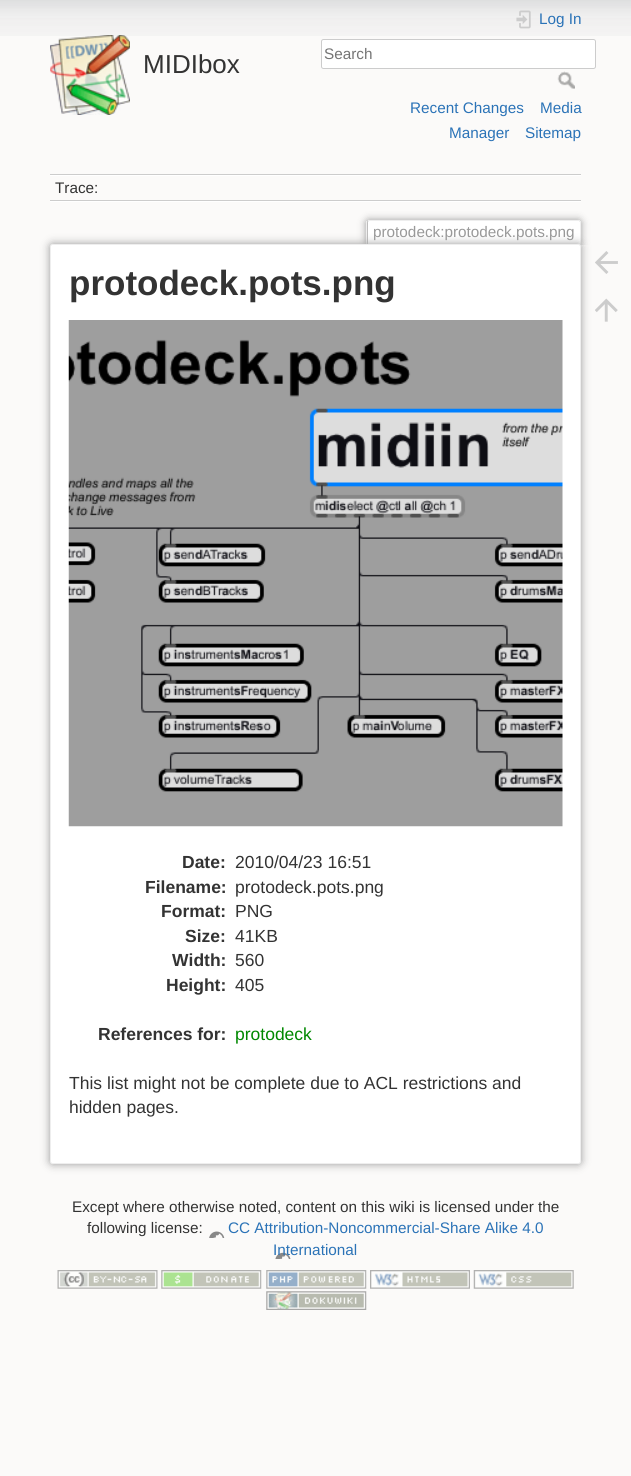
import math
import cairocffi as cairo

surface = cairo.ImageSurface(cairo.FORMAT_RGB24, 631, 1476)
ctx = cairo.Context(surface)
options = cairo.FontOptions()
options.set_hint_metrics(cairo.HINT_METRICS_OFF)
options.set_hint_style(cairo.HINT_STYLE_NONE)
ctx.set_font_options(options)
ctx.set_miter_limit(4)


def rgb(r, g, b):
    ctx.set_source_rgb(r / 255, g / 255, b / 255)


def face(family, size, italic, bold):
    ctx.select_font_face(family, cairo.FONT_SLANT_ITALIC if italic else cairo.FONT_SLANT_NORMAL, cairo.FONT_WEIGHT_BOLD if bold else cairo.FONT_WEIGHT_NORMAL)
    ctx.set_font_size(size)


def label(x, y, s):
    ctx.move_to(x, y)
    ctx.show_text(s)


def rect(x, y, w, h):
    ctx.rectangle(x, y, w, h)
    ctx.fill()


def rrect(x, y, w, h, r):
    ctx.new_sub_path()
    for i, (u, v) in enumerate([(x + w - r, y + h - r), (x + r, y + h - r), (x + r, y + r), (x + w - r, y + r)]):
        ctx.arc(u, v, r, i * math.pi / 2, (i + 1) * math.pi / 2)
    ctx.close_path()


def soft_shadow(x, y, w, h, r, blur, alpha):
    ctx.push_group_with_content(cairo.CONTENT_ALPHA)
    ctx.set_operator(cairo.OPERATOR_SOURCE)
    for i in range(15, -16, -2):
        e = blur * i / 6
        if min(w, h) + 2 * e > 0:
            ctx.set_source_rgba(0, 0, 0, alpha * math.erfc((i - 1) / 8.5) / 2)
            rrect(x - e, y - e, w + 2 * e, h + 2 * e, max(0, min(r + e + blur * .6, min(w, h) / 2 + e)))
            ctx.fill()
    ctx.mask(ctx.pop_group())


def image(path, x, y, w, h):
    ctx.save()
    ctx.set_source_surface(cairo.ImageSurface.create_from_png(path), x, y)
    ctx.rectangle(x, y, w, h)
    ctx.fill()
    ctx.restore()


rgb(251, 250, 249)
ctx.paint()
image('image0.png', 0, 0, 631, 36)
image('image1.png', 50, 35, 80, 80)
face('Liberation Sans', 26, 0, 0)
rgb(51, 51, 51)
label(143, 73, 'MIDIbox')
image('image2.png', 516, 10, 15, 19)
face('Liberation Sans', 15.3, 0, 0)
rgb(43, 115, 183)
label(539, 24, 'Log In')
rgb(255, 255, 255)
rrect(321.5, 39.5, 274, 29, 2)
ctx.fill_preserve()
rgb(204, 204, 204)
ctx.set_line_width(1)
ctx.stroke()
rgb(117, 117, 117)
label(324, 59, 'Search')
image('image3.png', 557, 71, 18, 18)
rgb(43, 115, 183)
label(410, 113, 'Recent Changes')
label(540, 113, 'Media')
label(449, 138, 'Manager')
label(525, 138, 'Sitemap')
rgb(204, 204, 204)
rect(50, 174, 531, 1)
rgb(255, 255, 255)
rect(50, 201, 531, 1)
rect(50, 175, 531, 1)
rgb(204, 204, 204)
rect(50, 200, 531, 1)
rgb(51, 51, 51)
label(55, 193, 'Trace:')
ctx.save()
ctx.rectangle(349, 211, 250, 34)
ctx.clip()
rgb(153, 153, 153)
soft_shadow(366, 220, 215, 25, 2.5, 4, 1)
ctx.restore()
rgb(255, 255, 255)
ctx.new_path()
ctx.move_to(369, 221)
ctx.line_to(579, 221)
ctx.curve_to(579.5, 221, 580, 221.5, 580, 222)
ctx.line_to(580, 245)
ctx.line_to(368, 245)
ctx.line_to(368, 222)
ctx.curve_to(368, 221.5, 368.5, 221, 369, 221)
ctx.close_path()
ctx.fill()
rgb(238, 238, 238)
rect(368, 220, 212, 1)
rect(580, 221, 1, 24)
rect(366, 221, 1, 24)
rgb(153, 153, 153)
label(373, 237, 'protodeck:protodeck.pots.png')
rgb(153, 153, 153)
soft_shadow(50, 244, 531, 920, 2.5, 4.5, 1)
rgb(255, 255, 255)
rrect(50.5, 244.5, 530, 919, 2)
ctx.fill_preserve()
rgb(238, 238, 238)
ctx.stroke()
face('Liberation Sans', 35, 0, 1)
rgb(51, 51, 51)
label(69, 295, 'protodeck.pots.png')
image('image4.png', 68, 320, 495, 507)
face('Liberation Sans', 17.5, 0, 1)
label(182, 868, 'Date:')
face('Liberation Sans', 17.5, 0, 0)
label(235, 868, '2010/04/23 16:51')
face('Liberation Sans', 17.5, 0, 1)
label(145, 893, 'Filename:')
face('Liberation Sans', 17.5, 0, 0)
label(235, 893, 'protodeck.pots.png')
face('Liberation Sans', 17.5, 0, 1)
label(161, 917, 'Format:')
face('Liberation Sans', 17.5, 0, 0)
label(235, 917, 'PNG')
face('Liberation Sans', 17.5, 0, 1)
label(185, 942, 'Size:')
face('Liberation Sans', 17.5, 0, 0)
label(235, 942, '41KB')
face('Liberation Sans', 17.5, 0, 1)
label(172, 966, 'Width:')
face('Liberation Sans', 17.5, 0, 0)
label(235, 966, '560')
face('Liberation Sans', 17.5, 0, 1)
label(166, 991, 'Height:')
face('Liberation Sans', 17.5, 0, 0)
label(235, 991, '405')
face('Liberation Sans', 17.5, 0, 1)
label(98, 1040, 'References for:')
face('Liberation Sans', 17.5, 0, 0)
rgb(0, 136, 0)
label(235, 1040, 'protodeck')
rgb(51, 51, 51)
label(69, 1089, 'This list might not be complete due to ACL restrictions and')
label(69, 1113, 'hidden pages.')
image('image5.png', 595, 251, 23, 23)
image('image6.png', 595, 298, 23, 24)
face('Liberation Sans', 15.3, 0, 0)
label(72, 1212, 'Except where otherwise noted, content on this wiki is licensed under the')
label(87, 1233, 'following license:')
image('image7.png', 209, 1231, 82, 28)
rgb(43, 115, 183)
label(228, 1233, 'CC Attribution-Noncommercial-Share Alike 4.0')
label(273, 1255, 'International')
image('image8.png', 57, 1270, 101, 19)
image('image9.png', 161, 1270, 101, 19)
image('image10.png', 266, 1270, 101, 19)
image('image11.png', 370, 1270, 100, 19)
image('image12.png', 473, 1270, 101, 19)
image('image13.png', 266, 1291, 101, 19)
surface.write_to_png('render.png')
